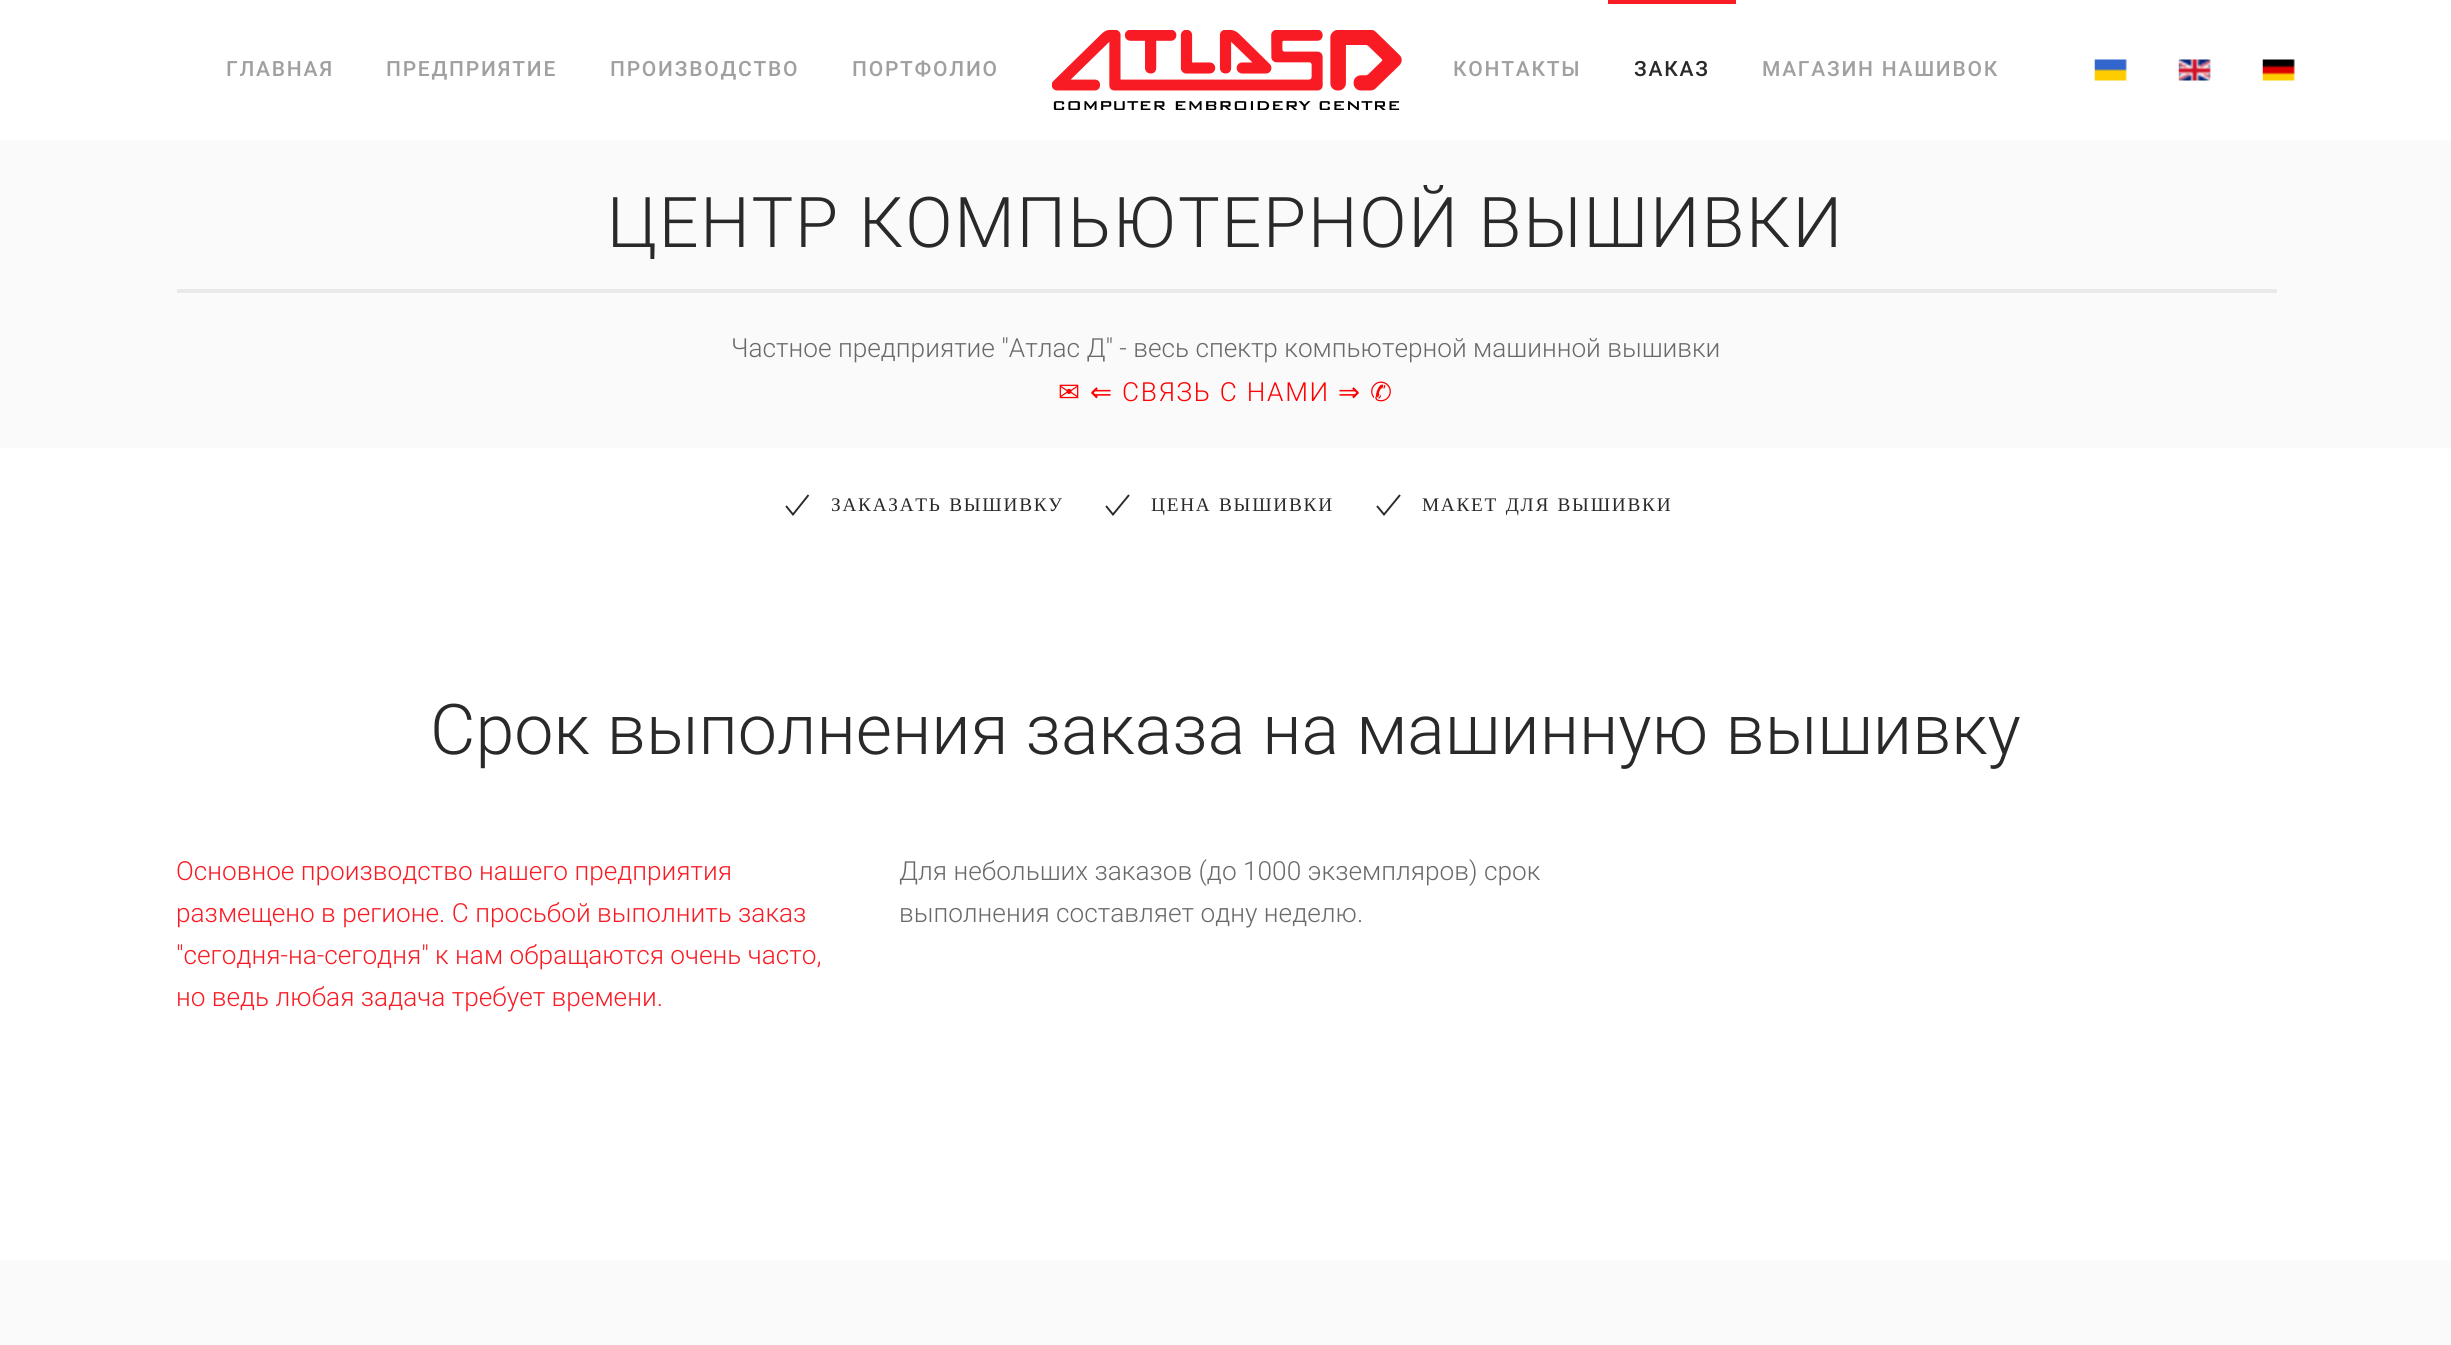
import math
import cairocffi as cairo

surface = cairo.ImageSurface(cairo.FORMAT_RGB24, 2451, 1345)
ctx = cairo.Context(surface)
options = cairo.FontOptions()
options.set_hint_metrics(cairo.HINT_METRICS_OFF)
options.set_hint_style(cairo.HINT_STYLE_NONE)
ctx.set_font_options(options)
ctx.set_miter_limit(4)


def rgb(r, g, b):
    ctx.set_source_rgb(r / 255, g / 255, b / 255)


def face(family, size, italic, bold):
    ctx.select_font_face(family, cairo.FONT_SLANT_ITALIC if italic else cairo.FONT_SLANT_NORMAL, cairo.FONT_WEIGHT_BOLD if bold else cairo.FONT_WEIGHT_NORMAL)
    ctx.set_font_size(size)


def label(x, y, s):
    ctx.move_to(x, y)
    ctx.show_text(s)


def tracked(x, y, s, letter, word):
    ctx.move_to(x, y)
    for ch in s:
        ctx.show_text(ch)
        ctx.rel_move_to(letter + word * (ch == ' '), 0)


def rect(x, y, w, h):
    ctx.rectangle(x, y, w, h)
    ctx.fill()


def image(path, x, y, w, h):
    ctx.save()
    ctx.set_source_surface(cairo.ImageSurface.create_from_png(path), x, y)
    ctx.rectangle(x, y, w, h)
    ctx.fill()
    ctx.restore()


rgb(255, 255, 255)
ctx.paint()
face('Roboto Medium', 21, 0, 0)
rgb(160, 160, 160)
tracked(226, 76, 'ГЛАВНАЯ', 1.75, 0)
tracked(386, 76, 'ПРЕДПРИЯТИЕ', 1.75, 0)
tracked(610, 76, 'ПРОИЗВОДСТВО', 1.75, 0)
tracked(852, 76, 'ПОРТФОЛИО', 1.75, 0)
image('image0.png', 1052, 30, 350, 80)
tracked(1453, 76, 'КОНТАКТЫ', 1.75, 0)
rgb(249, 27, 36)
rect(1608, 0, 128, 4)
rgb(41, 41, 41)
tracked(1634, 76, 'ЗАКАЗ', 1.75, 0)
rgb(160, 160, 160)
tracked(1762, 76, 'МАГАЗИН НАШИВОК', 1.75, 0)
image('image1.png', 2094, 59, 33, 22)
image('image2.png', 2178, 59, 33, 22)
image('image3.png', 2262, 59, 33, 22)
rgb(250, 250, 250)
rect(0, 140, 2451, 308)
rgb(233, 233, 233)
rect(177, 289, 2100, 4)
face('Roboto Light', 70, 0, 0)
rgb(41, 41, 41)
tracked(607, 247, 'ЦЕНТР КОМПЬЮТЕРНОЙ ВЫШИВКИ', 1.75, 0)
face('Roboto Light', 26.25, 0, 0)
rgb(105, 105, 105)
label(731, 357, 'Частное предприятие "Атлас Д" - весь спектр компьютерной машинной вышивки')
face('DejaVu Sans', 26.25, 0, 0)
rgb(255, 0, 0)
tracked(1058, 401, '✉', 1.75, 0)
tracked(1090, 401, '⇐', 1.75, 0)
face('Roboto Light', 26.25, 0, 0)
tracked(1122, 401, 'СВЯЗЬ С НАМИ', 1.75, 0)
face('DejaVu Sans', 26.25, 0, 0)
tracked(1338, 401, '⇒', 1.75, 0)
tracked(1370, 401, '✆', 1.75, 0)
ctx.new_path()
ctx.move_to(786, 506)
ctx.line_to(793, 514.5)
ctx.line_to(808.5, 495)
rgb(41, 41, 41)
ctx.set_line_width(1.9)
ctx.stroke()
face('Liberation Serif', 19.25, 0, 0)
tracked(831, 511, 'ЗАКАЗАТЬ ВЫШИВКУ', 1.75, 1)
ctx.new_path()
ctx.move_to(1106, 506)
ctx.line_to(1113, 514.5)
ctx.line_to(1129, 495)
ctx.stroke()
tracked(1151, 511, 'ЦЕНА ВЫШИВКИ', 1.75, 1)
ctx.new_path()
ctx.move_to(1377, 506)
ctx.line_to(1384, 514.5)
ctx.line_to(1400, 495)
ctx.stroke()
tracked(1422, 511, 'МАКЕТ ДЛЯ ВЫШИВКИ', 1.75, 1)
face('Roboto Light', 70, 0, 0)
label(430, 754, 'Срок выполнения заказа на машинную вышивку')
face('Roboto Light', 26.25, 0, 0)
rgb(249, 27, 36)
label(176, 880, 'Основное производство нашего предприятия')
label(176, 922, 'размещено в регионе. С просьбой выполнить заказ')
label(176, 964, '"сегодня-на-сегодня" к нам обращаются очень часто,')
label(176, 1006, 'но ведь любая задача требует времени.')
rgb(105, 105, 105)
label(899, 880, 'Для небольших заказов (до 1000 экземпляров) срок')
label(899, 922, 'выполнения составляет одну неделю.')
rgb(250, 250, 250)
rect(0, 1260, 2451, 85)
surface.write_to_png('render.png')
